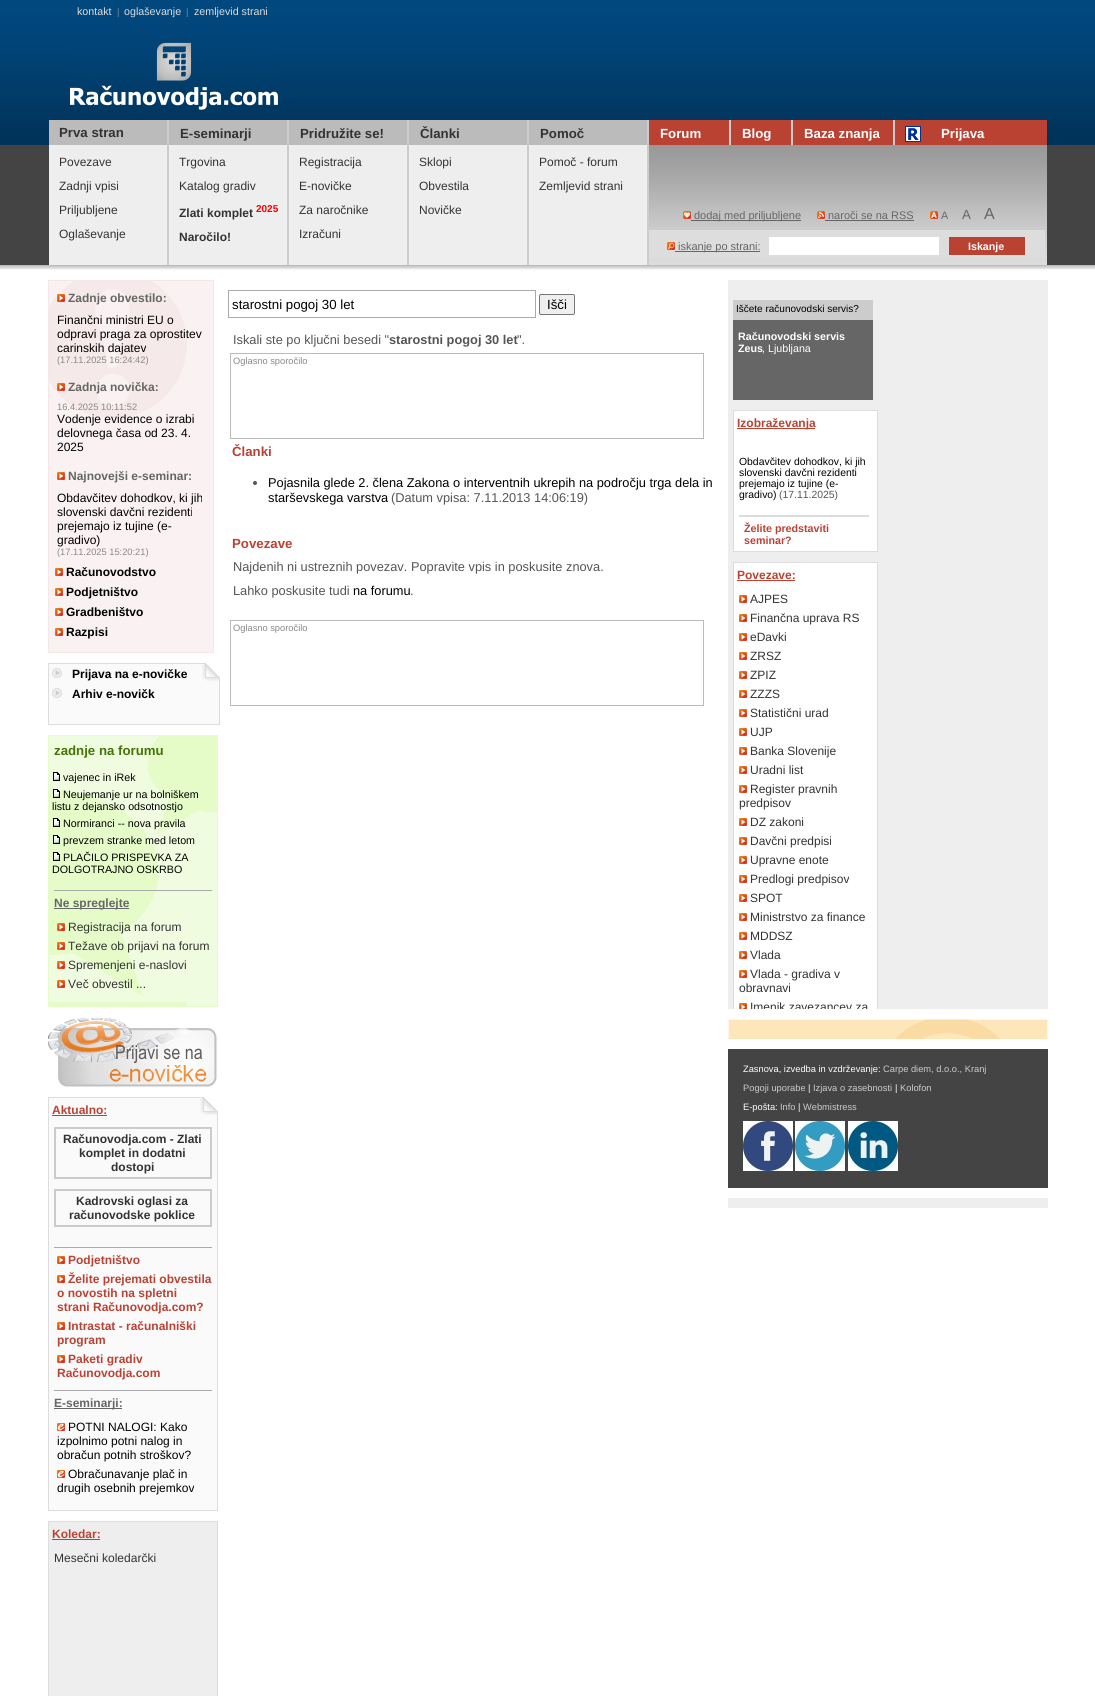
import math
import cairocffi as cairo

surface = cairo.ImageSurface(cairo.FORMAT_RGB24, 1095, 1696)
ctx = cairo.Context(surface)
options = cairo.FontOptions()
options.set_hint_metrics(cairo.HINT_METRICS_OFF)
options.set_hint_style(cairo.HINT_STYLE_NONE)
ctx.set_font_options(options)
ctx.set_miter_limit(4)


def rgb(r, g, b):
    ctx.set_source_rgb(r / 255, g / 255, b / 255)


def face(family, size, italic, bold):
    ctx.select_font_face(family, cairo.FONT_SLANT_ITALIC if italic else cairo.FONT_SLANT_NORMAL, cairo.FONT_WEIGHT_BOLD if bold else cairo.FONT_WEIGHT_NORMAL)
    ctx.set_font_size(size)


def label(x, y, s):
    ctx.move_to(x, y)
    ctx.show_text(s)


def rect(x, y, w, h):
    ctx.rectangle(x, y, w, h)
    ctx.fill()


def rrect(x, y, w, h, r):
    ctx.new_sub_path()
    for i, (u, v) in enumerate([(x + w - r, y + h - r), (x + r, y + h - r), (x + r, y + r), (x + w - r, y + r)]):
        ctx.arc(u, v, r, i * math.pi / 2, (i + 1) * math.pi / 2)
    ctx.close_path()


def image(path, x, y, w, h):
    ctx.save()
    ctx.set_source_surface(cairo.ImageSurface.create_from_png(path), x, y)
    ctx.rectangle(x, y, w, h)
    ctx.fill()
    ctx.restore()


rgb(255, 255, 255)
ctx.paint()
image('image0.png', 0, 0, 1095, 145)
face('Liberation Sans', 10.7, 0, 0)
rgb(221, 221, 221)
label(77, 15, 'kontakt')
face('Liberation Sans', 9.3, 0, 0)
rgb(136, 136, 136)
label(117, 15, '|')
face('Liberation Sans', 10.7, 0, 0)
rgb(221, 221, 221)
label(124, 15, 'oglaševanje')
face('Liberation Sans', 9.3, 0, 0)
rgb(136, 136, 136)
label(186, 15, '|')
face('Liberation Sans', 10.7, 0, 0)
rgb(221, 221, 221)
label(194, 15, 'zemljevid strani')
image('image1.png', 70, 42, 208, 68)
rgb(187, 187, 187)
rect(49, 120, 118, 25)
rgb(204, 204, 204)
rect(167, 120, 2, 25)
face('Liberation Sans', 13.25, 0, 1)
rgb(51, 51, 51)
label(59, 137, 'Prva stran')
rgb(187, 187, 187)
rect(169, 120, 118, 25)
rgb(204, 204, 204)
rect(287, 120, 2, 25)
rgb(51, 51, 51)
label(180, 138, 'E-seminarji')
rgb(187, 187, 187)
rect(289, 120, 118, 25)
rgb(204, 204, 204)
rect(407, 120, 2, 25)
rgb(51, 51, 51)
label(300, 138, 'Pridružite se!')
rgb(187, 187, 187)
rect(409, 120, 118, 25)
rgb(204, 204, 204)
rect(527, 120, 2, 25)
rgb(51, 51, 51)
label(420, 138, 'Članki')
rgb(187, 187, 187)
rect(529, 120, 118, 25)
rgb(204, 204, 204)
rect(647, 120, 2, 25)
rgb(51, 51, 51)
label(540, 138, 'Pomoč')
rgb(186, 66, 51)
rect(649, 120, 80, 25)
rgb(255, 255, 255)
label(660, 138, 'Forum')
rgb(186, 66, 51)
rect(731, 120, 60, 25)
rgb(204, 204, 204)
rect(729, 120, 2, 25)
rgb(255, 255, 255)
label(742, 138, 'Blog')
rgb(186, 66, 51)
rect(793, 120, 100, 25)
rgb(204, 204, 204)
rect(791, 120, 2, 25)
rgb(255, 255, 255)
label(804, 138, 'Baza znanja')
rgb(186, 66, 51)
rect(895, 120, 152, 25)
rgb(204, 204, 204)
rect(893, 120, 2, 25)
image('image2.png', 905, 126, 16, 16)
rgb(255, 255, 255)
label(941, 138, 'Prijava')
rgb(68, 68, 68)
rect(0, 145, 1095, 120)
rgb(238, 238, 238)
rect(49, 145, 118, 120)
rgb(204, 204, 204)
rect(167, 145, 2, 120)
face('Liberation Sans', 12, 0, 0)
rgb(51, 51, 51)
label(59, 166, 'Povezave')
label(59, 190, 'Zadnji vpisi')
label(59, 214, 'Priljubljene')
label(59, 238, 'Oglaševanje')
rgb(238, 238, 238)
rect(169, 145, 118, 120)
rgb(204, 204, 204)
rect(287, 145, 2, 120)
rgb(51, 51, 51)
label(179, 166, 'Trgovina')
label(179, 190, 'Katalog gradiv')
face('Liberation Sans', 12, 0, 1)
label(179, 217, 'Zlati komplet')
face('Liberation Sans', 10, 0, 1)
rgb(255, 0, 0)
label(256, 212, '2025')
face('Liberation Sans', 12, 0, 1)
rgb(51, 51, 51)
label(179, 241, 'Naročilo!')
rgb(238, 238, 238)
rect(289, 145, 118, 120)
rgb(204, 204, 204)
rect(407, 145, 2, 120)
face('Liberation Sans', 12, 0, 0)
rgb(51, 51, 51)
label(299, 166, 'Registracija')
label(299, 190, 'E-novičke')
label(299, 214, 'Za naročnike')
label(299, 238, 'Izračuni')
rgb(238, 238, 238)
rect(409, 145, 118, 120)
rgb(204, 204, 204)
rect(527, 145, 2, 120)
rgb(51, 51, 51)
label(419, 166, 'Sklopi')
label(419, 190, 'Obvestila')
label(419, 214, 'Novičke')
rgb(238, 238, 238)
rect(529, 145, 118, 120)
rgb(204, 204, 204)
rect(647, 145, 2, 120)
rgb(51, 51, 51)
label(539, 166, 'Pomoč - forum')
label(539, 190, 'Zemljevid strani')
image('image3.png', 649, 145, 398, 120)
image('image4.png', 683, 211, 8, 8)
rgb(102, 102, 102)
rect(691, 220, 110, 1)
face('Liberation Sans', 11, 0, 0)
label(694, 219, 'dodaj med priljubljene')
image('image5.png', 817, 211, 8, 8)
label(828, 219, 'naroči se na RSS')
rect(825, 220, 89, 1)
image('image6.png', 930, 211, 8, 8)
face('Liberation Sans', 10.7, 0, 0)
label(941, 219, 'A')
face('Liberation Sans', 13.25, 0, 0)
label(962, 219, 'A')
face('Liberation Sans', 16, 0, 0)
label(984, 219, 'A')
rgb(221, 221, 221)
rect(649, 230, 396, 28)
image('image7.png', 667, 242, 8, 8)
rgb(102, 102, 102)
rect(675, 251, 85, 1)
face('Liberation Sans', 11, 0, 0)
label(678, 250, 'iskanje po strani:')
rgb(255, 255, 255)
rect(769, 237, 170, 18)
rgb(186, 66, 51)
rect(949, 237, 76, 18)
face('Liberation Sans', 10.7, 0, 1)
rgb(255, 255, 255)
label(968, 250, 'Iskanje')
image('image8.png', 0, 265, 1095, 5)
rgb(250, 242, 242)
rect(49, 281, 164, 371)
image('image9.png', 49, 281, 138, 137)
ctx.rectangle(48.5, 280.5, 165, 372)
rgb(246, 231, 231)
ctx.set_line_width(1)
ctx.stroke()
image('image10.png', 57, 294, 8, 8)
face('Liberation Sans', 12, 0, 1)
rgb(102, 102, 102)
label(68, 302, 'Zadnje obvestilo:')
face('Liberation Sans', 12, 0, 0)
rgb(0, 0, 0)
label(57, 324, 'Finančni ministri EU o')
label(57, 338, 'odpravi praga za oprostitev')
label(57, 352, 'carinskih dajatev')
face('Liberation Sans', 9.3, 0, 0)
rgb(136, 136, 136)
label(57, 363, '(17.11.2025 16:24:42)')
image('image10.png', 57, 383, 8, 8)
face('Liberation Sans', 12, 0, 1)
rgb(102, 102, 102)
label(68, 391, 'Zadnja novička:')
face('Liberation Sans', 9.3, 0, 0)
rgb(136, 136, 136)
label(57, 410, '16.4.2025 10:11:52')
face('Liberation Sans', 12, 0, 0)
rgb(0, 0, 0)
label(57, 423, 'Vodenje evidence o izrabi')
label(57, 437, 'delovnega časa od 23. 4.')
label(57, 451, '2025')
image('image10.png', 57, 472, 8, 8)
face('Liberation Sans', 12, 0, 1)
rgb(102, 102, 102)
label(68, 480, 'Najnovejši e-seminar:')
face('Liberation Sans', 12, 0, 0)
rgb(0, 0, 0)
label(57, 502, 'Obdavčitev dohodkov, ki jih')
label(57, 516, 'slovenski davčni rezidenti')
label(57, 530, 'prejemajo iz tujine (e-')
label(57, 544, 'gradivo)')
face('Liberation Sans', 9.3, 0, 0)
rgb(136, 136, 136)
label(57, 555, '(17.11.2025 15:20:21)')
image('image10.png', 55, 568, 8, 8)
face('Liberation Sans', 12, 0, 1)
rgb(0, 0, 0)
label(66, 576, 'Računovodstvo')
image('image10.png', 55, 588, 8, 8)
label(66, 596, 'Podjetništvo')
image('image10.png', 55, 608, 8, 8)
label(66, 616, 'Gradbeništvo')
image('image10.png', 55, 628, 8, 8)
label(66, 636, 'Razpisi')
rgb(250, 250, 250)
rect(49, 664, 170, 60)
image('image11.png', 202, 664, 17, 17)
ctx.rectangle(48.5, 663.5, 171, 61)
rgb(221, 221, 221)
ctx.stroke()
image('image12.png', 52, 668, 10, 10)
rgb(0, 0, 0)
label(72, 678, 'Prijava na e-novičke')
image('image13.png', 205, 663, 15, 15)
image('image12.png', 52, 688, 10, 10)
label(72, 698, 'Arhiv e-novičk')
image('image14.png', 49, 736, 168, 270)
ctx.rectangle(48.5, 735.5, 169, 271)
rgb(229, 252, 201)
ctx.stroke()
face('Liberation Sans', 13.25, 0, 1)
rgb(67, 117, 7)
label(54, 755, 'zadnje na forumu')
image('image15.png', 53, 772, 7, 9)
face('Liberation Sans', 10.7, 0, 0)
rgb(0, 0, 0)
label(63, 781, 'vajenec in iRek')
image('image16.png', 53, 789, 7, 9)
label(63, 798, 'Neujemanje ur na bolniškem')
label(52, 810, 'listu z dejansko odsotnostjo')
image('image17.png', 53, 818, 7, 9)
label(63, 827, 'Normiranci -- nova pravila')
image('image17.png', 53, 835, 7, 9)
label(63, 844, 'prevzem stranke med letom')
image('image17.png', 53, 852, 7, 9)
label(63, 861, 'PLAČILO PRISPEVKA ZA')
label(52, 873, 'DOLGOTRAJNO OSKRBO')
rgb(170, 170, 170)
rect(54, 890, 158, 1)
rgb(102, 102, 102)
rect(54, 908, 75, 1)
face('Liberation Sans', 12, 0, 1)
label(54, 907, 'Ne spreglejte')
image('image10.png', 57, 923, 8, 8)
face('Liberation Sans', 12, 0, 0)
rgb(51, 51, 51)
label(68, 931, 'Registracija na forum')
image('image10.png', 57, 942, 8, 8)
label(68, 950, 'Težave ob prijavi na forum')
image('image10.png', 57, 961, 8, 8)
label(68, 969, 'Spremenjeni e-naslovi')
image('image10.png', 57, 980, 8, 8)
label(68, 988, 'Več obvestil ...')
image('image18.png', 48, 1018, 169, 69)
rgb(250, 250, 250)
rect(49, 1098, 168, 412)
image('image11.png', 200, 1098, 17, 17)
ctx.rectangle(48.5, 1097.5, 169, 413)
rgb(221, 221, 221)
ctx.stroke()
face('Liberation Sans', 12, 0, 1)
rgb(186, 66, 51)
label(52, 1114, 'Aktualno:')
rect(52, 1115, 55, 1)
image('image13.png', 203, 1097, 15, 15)
ctx.rectangle(55, 1128, 156, 50)
rgb(204, 204, 204)
ctx.set_line_width(2)
ctx.stroke()
rgb(51, 51, 51)
label(63, 1143, 'Računovodja.com - Zlati')
label(79, 1157, 'komplet in dodatni')
label(111, 1171, 'dostopi')
ctx.rectangle(55, 1190, 156, 36)
rgb(204, 204, 204)
ctx.stroke()
rgb(51, 51, 51)
label(76, 1205, 'Kadrovski oglasi za')
label(69, 1219, 'računovodske poklice')
rgb(170, 170, 170)
rect(54, 1247, 158, 1)
image('image10.png', 57, 1256, 8, 8)
rgb(186, 66, 51)
label(68, 1264, 'Podjetništvo')
image('image10.png', 57, 1275, 8, 8)
label(68, 1283, 'Želite prejemati obvestila')
label(57, 1297, 'o novostih na spletni')
label(57, 1311, 'strani Računovodja.com?')
image('image10.png', 57, 1322, 8, 8)
label(68, 1330, 'Intrastat - računalniški')
label(57, 1344, 'program')
image('image10.png', 57, 1355, 8, 8)
label(68, 1363, 'Paketi gradiv')
label(57, 1377, 'Računovodja.com')
rgb(170, 170, 170)
rect(54, 1390, 158, 1)
rgb(102, 102, 102)
rect(54, 1408, 68, 1)
label(54, 1407, 'E-seminarji:')
image('image19.png', 57, 1423, 8, 8)
face('Liberation Sans', 12, 0, 0)
rgb(0, 0, 0)
label(68, 1431, 'POTNI NALOGI: Kako')
label(57, 1445, 'izpolnimo potni nalog in')
label(57, 1459, 'obračun potnih stroškov?')
image('image19.png', 57, 1470, 8, 8)
label(68, 1478, 'Obračunavanje plač in')
label(57, 1492, 'drugih osebnih prejemkov')
rgb(238, 238, 238)
ctx.rectangle(48.5, 1521.5, 169, 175)
ctx.fill_preserve()
rgb(221, 221, 221)
ctx.set_line_width(1)
ctx.stroke()
face('Liberation Sans', 12, 0, 1)
rgb(186, 66, 51)
label(52, 1538, 'Koledar:')
rect(52, 1539, 48, 1)
face('Liberation Sans', 12, 0, 0)
rgb(51, 51, 51)
label(54, 1562, 'Mesečni koledarčki')
ctx.rectangle(228.5, 290.5, 307, 27)
rgb(170, 170, 170)
ctx.stroke()
face('Liberation Sans', 13.25, 0, 0)
rgb(0, 0, 0)
label(232, 309, 'starostni pogoj 30 let')
rgb(239, 239, 239)
rrect(539.5, 294.5, 35, 20, 1.5)
ctx.fill_preserve()
rgb(118, 118, 118)
ctx.stroke()
rgb(0, 0, 0)
label(547, 309, 'Išči')
face('Liberation Sans', 12.8, 0, 0)
rgb(85, 85, 85)
label(233, 344, 'Iskali ste po ključni besedi "')
face('Liberation Sans', 12.8, 0, 1)
label(389, 344, 'starostni pogoj 30 let')
face('Liberation Sans', 12.8, 0, 0)
label(517, 344, '".')
ctx.rectangle(230.5, 353.5, 473, 85)
rgb(187, 187, 187)
ctx.stroke()
face('Liberation Sans', 9.3, 0, 0)
rgb(136, 136, 136)
label(233, 364, 'Oglasno sporočilo')
face('Liberation Sans', 13.25, 0, 1)
rgb(186, 66, 51)
label(232, 456, 'Članki')
rgb(85, 85, 85)
ctx.new_path()
ctx.arc(255, 483, 2, 0, 2 * math.pi)
ctx.fill()
face('Liberation Sans', 12.8, 0, 0)
rgb(0, 0, 0)
label(268, 487, 'Pojasnila glede 2. člena Zakona o interventnih ukrepih na področju trga dela in')
label(268, 502, 'starševskega varstva')
rgb(85, 85, 85)
label(391, 502, '(Datum vpisa: 7.11.2013 14:06:19)')
face('Liberation Sans', 13.25, 0, 1)
rgb(186, 66, 51)
label(232, 548, 'Povezave')
face('Liberation Sans', 12.8, 0, 0)
rgb(85, 85, 85)
label(233, 571, 'Najdenih ni ustreznih povezav. Popravite vpis in poskusite znova.')
label(233, 595, 'Lahko poskusite tudi')
rgb(0, 0, 0)
label(353, 595, 'na forumu')
rgb(85, 85, 85)
label(410, 595, '.')
ctx.rectangle(230.5, 620.5, 473, 85)
rgb(187, 187, 187)
ctx.stroke()
face('Liberation Sans', 9.3, 0, 0)
rgb(136, 136, 136)
label(233, 631, 'Oglasno sporočilo')
rgb(238, 238, 238)
rect(728, 280, 320, 928)
rgb(204, 204, 204)
rect(733, 300, 140, 20)
face('Liberation Sans', 10, 0, 0)
rgb(0, 0, 0)
label(736, 312, 'Iščete računovodski servis?')
rgb(102, 102, 102)
rect(733, 320, 140, 80)
face('Liberation Sans', 10.7, 0, 1)
rgb(255, 255, 255)
label(738, 340, 'Računovodski servis')
label(738, 352, 'Zeus')
face('Liberation Sans', 10.7, 0, 0)
label(762, 352, ', Ljubljana')
ctx.rectangle(733.5, 410.5, 144, 141)
ctx.fill_preserve()
rgb(221, 221, 221)
ctx.stroke()
rgb(186, 66, 51)
rect(737, 428, 78, 1)
face('Liberation Sans', 12, 0, 1)
label(737, 427, 'Izobraževanja')
face('Liberation Sans', 10.4, 0, 0)
rgb(0, 0, 0)
label(739, 465, 'Obdavčitev dohodkov, ki jih')
label(739, 476, 'slovenski davčni rezidenti')
label(739, 487, 'prejemajo iz tujine (e-')
label(739, 498, 'gradivo)')
rgb(85, 85, 85)
label(779, 498, '(17.11.2025)')
rgb(221, 221, 221)
rect(739, 515, 130, 2)
face('Liberation Sans', 10.7, 0, 1)
rgb(186, 66, 51)
label(744, 532, 'Želite predstaviti')
label(744, 544, 'seminar?')
rgb(255, 255, 255)
rect(734, 563, 143, 446)
ctx.rectangle(733.5, 562.5, 144, 471)
rgb(221, 221, 221)
ctx.stroke()
face('Liberation Sans', 12, 0, 1)
rgb(186, 66, 51)
label(737, 579, 'Povezave:')
rect(737, 580, 58, 1)
image('image10.png', 739, 595, 8, 8)
face('Liberation Sans', 12, 0, 0)
rgb(51, 51, 51)
label(750, 603, 'AJPES')
image('image10.png', 739, 614, 8, 8)
label(750, 622, 'Finančna uprava RS')
image('image10.png', 739, 633, 8, 8)
label(750, 641, 'eDavki')
image('image10.png', 739, 652, 8, 8)
label(750, 660, 'ZRSZ')
image('image10.png', 739, 671, 8, 8)
label(750, 679, 'ZPIZ')
image('image10.png', 739, 690, 8, 8)
label(750, 698, 'ZZZS')
image('image10.png', 739, 709, 8, 8)
label(750, 717, 'Statistični urad')
image('image10.png', 739, 728, 8, 8)
label(750, 736, 'UJP')
image('image10.png', 739, 747, 8, 8)
label(750, 755, 'Banka Slovenije')
image('image10.png', 739, 766, 8, 8)
label(750, 774, 'Uradni list')
image('image10.png', 739, 785, 8, 8)
label(750, 793, 'Register pravnih')
label(739, 807, 'predpisov')
image('image10.png', 739, 818, 8, 8)
label(750, 826, 'DZ zakoni')
image('image10.png', 739, 837, 8, 8)
label(750, 845, 'Davčni predpisi')
image('image10.png', 739, 856, 8, 8)
label(750, 864, 'Upravne enote')
image('image10.png', 739, 875, 8, 8)
label(750, 883, 'Predlogi predpisov')
image('image10.png', 739, 894, 8, 8)
label(750, 902, 'SPOT')
image('image10.png', 739, 913, 8, 8)
label(750, 921, 'Ministrstvo za finance')
image('image10.png', 739, 932, 8, 8)
label(750, 940, 'MDDSZ')
image('image10.png', 739, 951, 8, 8)
label(750, 959, 'Vlada')
image('image10.png', 739, 970, 8, 8)
label(750, 978, 'Vlada - gradiva v')
label(739, 992, 'obravnavi')
image('image20.png', 739, 1003, 8, 6)
label(750, 1011, 'Imenik zavezancev za')
image('image21.png', 728, 1019, 320, 20)
rgb(255, 255, 255)
rect(728, 1009, 320, 10)
rgb(68, 68, 68)
rect(728, 1049, 320, 139)
rgb(255, 255, 255)
rect(728, 1039, 320, 10)
face('Liberation Sans', 9.3, 0, 0)
label(743, 1072, 'Zasnova, izvedba in vzdrževanje:')
rgb(204, 204, 204)
label(883, 1072, 'Carpe diem, d.o.o., Kranj')
label(743, 1091, 'Pogoji uporabe')
rgb(255, 255, 255)
label(808, 1091, '|')
rgb(204, 204, 204)
label(813, 1091, 'Izjava o zasebnosti')
rgb(255, 255, 255)
label(895, 1091, '|')
rgb(204, 204, 204)
label(900, 1091, 'Kolofon')
rgb(255, 255, 255)
label(743, 1110, 'E-pošta:')
rgb(204, 204, 204)
label(780, 1110, 'Info')
rgb(255, 255, 255)
label(798, 1110, '|')
rgb(204, 204, 204)
label(803, 1110, 'Webmistress')
image('image22.png', 743, 1121, 50, 50)
image('image23.png', 795, 1121, 50, 50)
image('image24.png', 848, 1121, 50, 50)
rgb(255, 255, 255)
rect(728, 1188, 320, 10)
surface.write_to_png('render.png')
